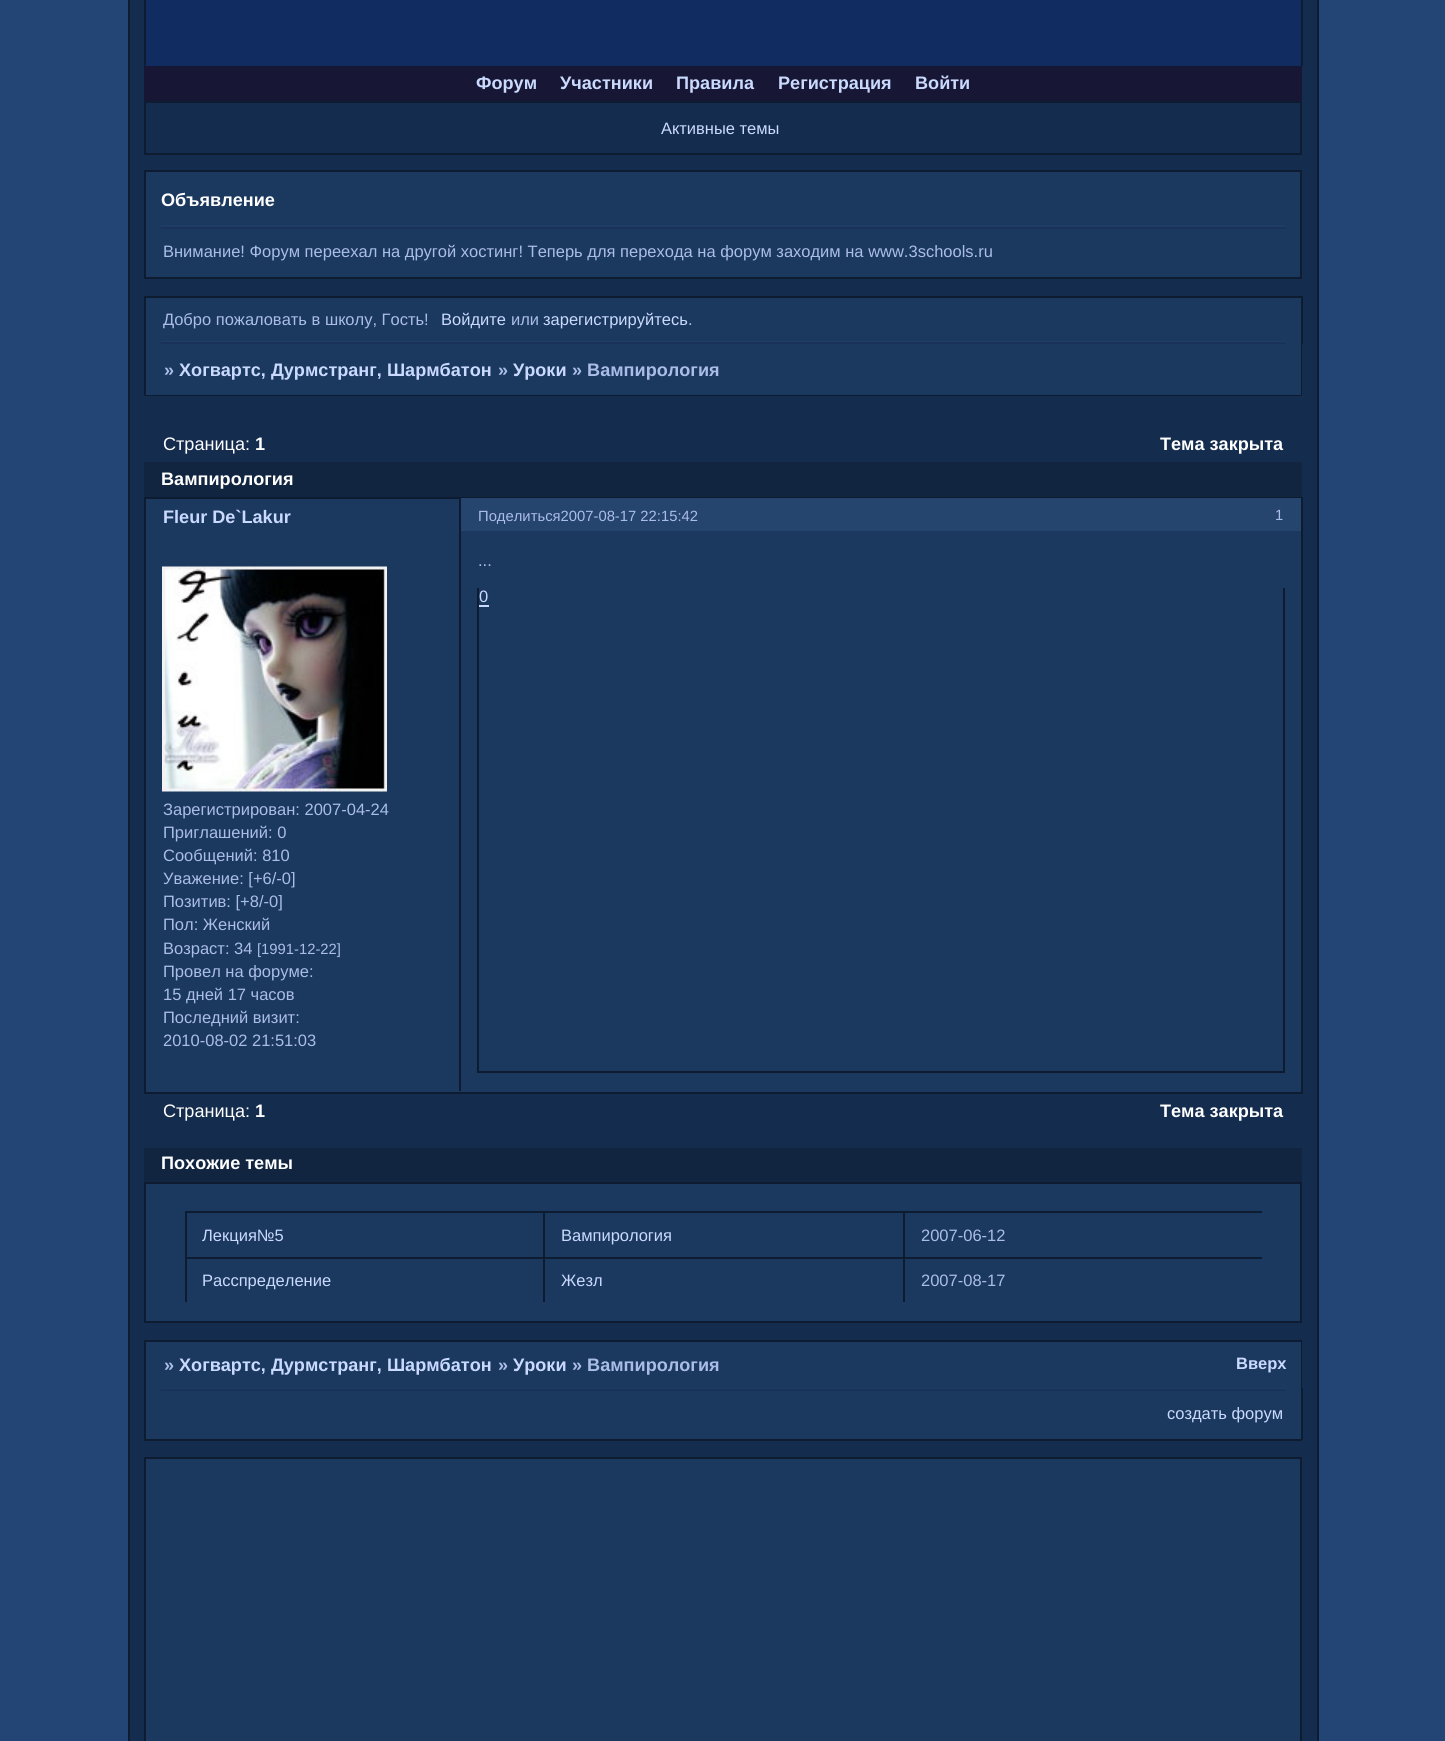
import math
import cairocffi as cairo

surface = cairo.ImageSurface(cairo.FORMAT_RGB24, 1445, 1741)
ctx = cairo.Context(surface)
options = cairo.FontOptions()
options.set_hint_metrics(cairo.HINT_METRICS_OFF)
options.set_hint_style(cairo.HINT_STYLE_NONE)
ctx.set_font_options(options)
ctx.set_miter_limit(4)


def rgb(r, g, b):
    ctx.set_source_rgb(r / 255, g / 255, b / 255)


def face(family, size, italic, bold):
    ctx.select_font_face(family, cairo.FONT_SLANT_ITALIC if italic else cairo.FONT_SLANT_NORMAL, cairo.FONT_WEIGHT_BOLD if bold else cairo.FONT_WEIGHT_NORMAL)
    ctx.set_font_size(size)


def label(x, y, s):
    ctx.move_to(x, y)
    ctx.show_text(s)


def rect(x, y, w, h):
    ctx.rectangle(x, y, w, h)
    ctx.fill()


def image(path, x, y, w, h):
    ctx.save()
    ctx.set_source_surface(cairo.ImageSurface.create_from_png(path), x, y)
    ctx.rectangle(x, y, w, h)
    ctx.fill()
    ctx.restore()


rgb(34, 69, 117)
ctx.paint()
rgb(20, 44, 77)
ctx.rectangle(129, -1, 1189, 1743)
ctx.fill_preserve()
rgb(13, 28, 49)
ctx.stroke()
rect(1301, 0, 2, 66)
rect(144, 0, 2, 66)
rgb(17, 44, 96)
rect(146, 0, 1155, 66)
rgb(23, 23, 53)
rect(144, 66, 1158, 35)
face('Liberation Sans', 18.1, 0, 1)
rgb(202, 218, 254)
label(476, 89, 'Форум')
label(560, 89, 'Участники')
label(676, 89, 'Правила')
label(778, 89, 'Регистрация')
label(915, 89, 'Войти')
ctx.rectangle(145, 102, 1156, 52)
rgb(13, 28, 49)
ctx.stroke()
face('Liberation Sans', 16.5, 0, 0)
rgb(202, 218, 254)
label(661, 134, 'Активные темы')
rgb(27, 56, 95)
ctx.rectangle(145, 171, 1156, 107)
ctx.fill_preserve()
rgb(13, 28, 49)
ctx.stroke()
rgb(24, 51, 87)
rect(161, 227, 1125, 2)
rgb(29, 60, 102)
rect(161, 225, 1125, 2)
face('Liberation Sans', 18.1, 0, 1)
rgb(255, 255, 255)
label(161, 206, 'Объявление')
face('Liberation Sans', 16.5, 0, 0)
rgb(170, 189, 232)
label(163, 257, 'Внимание! Форум переехал на другой хостинг! Теперь для перехода на форум заходим на www.3schools.ru')
rgb(27, 56, 95)
rect(146, 298, 1155, 97)
rgb(13, 28, 49)
rect(144, 296, 1158, 2)
rect(1301, 296, 2, 48)
rect(144, 296, 2, 48)
rgb(170, 189, 232)
label(163, 325, 'Добро пожаловать в школу, Гость!')
rgb(202, 218, 254)
label(441, 325, 'Войдите')
rgb(170, 189, 232)
label(511, 325, 'или')
rgb(202, 218, 254)
label(543, 325, 'зарегистрируйтесь')
rgb(170, 189, 232)
label(688, 325, '.')
rgb(29, 60, 102)
rect(161, 341, 1125, 1)
rgb(24, 51, 87)
rect(161, 342, 1125, 2)
rgb(13, 28, 49)
rect(1301, 341, 1, 55)
rect(144, 395, 1158, 1)
rect(144, 341, 2, 55)
face('Liberation Sans', 18.1, 0, 1)
rgb(170, 189, 232)
label(164, 376, '»')
rgb(202, 218, 254)
label(179, 376, 'Хогвартс, Дурмстранг, Шармбатон')
rgb(170, 189, 232)
label(498, 376, '»')
rgb(202, 218, 254)
label(513, 376, 'Уроки')
rgb(170, 189, 232)
label(572, 376, '» Вампирология')
face('Liberation Sans', 18.1, 0, 0)
rgb(255, 255, 255)
label(163, 450, 'Страница:')
face('Liberation Sans', 18.1, 0, 1)
label(255, 450, '1')
label(1160, 450, 'Тема закрыта')
rgb(17, 37, 64)
rect(144, 462, 1158, 35)
rgb(255, 255, 255)
label(161, 485, 'Вампирология')
rgb(13, 28, 49)
rect(144, 497, 1158, 2)
rect(459, 498, 2, 35)
rgb(27, 56, 95)
rect(146, 531, 1155, 561)
rgb(13, 28, 49)
rect(1301, 497, 2, 597)
rect(144, 1092, 1158, 2)
rect(144, 497, 2, 36)
rect(144, 531, 2, 563)
rgb(27, 56, 95)
rect(146, 499, 313, 32)
rgb(202, 218, 254)
label(163, 523, 'Fleur De`Lakur')
image('image0.png', 162, 566, 225, 226)
face('Liberation Sans', 16.5, 0, 0)
rgb(170, 189, 232)
label(163, 815, 'Зарегистрирован: 2007-04-24')
label(163, 838, 'Приглашений: 0')
label(163, 861, 'Сообщений: 810')
label(163, 884, 'Уважение: [+6/-0]')
label(163, 907, 'Позитив: [+8/-0]')
label(163, 930, 'Пол: Женский')
label(163, 954, 'Возраст: 34')
face('Liberation Sans', 14.8, 0, 0)
label(257, 954, '[1991-12-22]')
face('Liberation Sans', 16.5, 0, 0)
label(163, 977, 'Провел на форуме:')
label(163, 1000, '15 дней 17 часов')
label(163, 1023, 'Последний визит:')
label(163, 1046, '2010-08-02 21:51:03')
rgb(13, 28, 49)
rect(459, 531, 2, 560)
rgb(170, 189, 232)
label(478, 566, '...')
rgb(13, 28, 49)
rect(1283, 588, 2, 485)
rect(477, 1071, 807, 2)
rect(477, 588, 2, 485)
rgb(202, 218, 254)
label(479, 602, '0')
rect(479, 605, 10, 2)
rgb(37, 68, 110)
rect(461, 498, 840, 33)
face('Liberation Sans', 14.8, 0, 0)
rgb(170, 189, 232)
label(478, 521, 'Поделиться2007-08-17 22:15:42')
label(1275, 520, '1')
face('Liberation Sans', 18.1, 0, 0)
rgb(255, 255, 255)
label(163, 1117, 'Страница:')
face('Liberation Sans', 18.1, 0, 1)
label(255, 1117, '1')
label(1160, 1117, 'Тема закрыта')
rgb(17, 37, 64)
rect(144, 1148, 1158, 34)
rgb(255, 255, 255)
label(161, 1169, 'Похожие темы')
rgb(27, 56, 95)
ctx.rectangle(145, 1183, 1156, 139)
ctx.fill_preserve()
rgb(13, 28, 49)
ctx.stroke()
rect(185, 1211, 1077, 2)
rect(185, 1211, 2, 46)
face('Liberation Sans', 16.5, 0, 0)
rgb(202, 218, 254)
label(202, 1241, 'Лекция№5')
rgb(13, 28, 49)
rect(543, 1211, 2, 46)
rgb(202, 218, 254)
label(561, 1241, 'Вампирология')
rgb(13, 28, 49)
rect(903, 1211, 2, 46)
rgb(170, 189, 232)
label(921, 1241, '2007-06-12')
rgb(13, 28, 49)
rect(185, 1257, 1077, 2)
rect(185, 1257, 2, 45)
rgb(202, 218, 254)
label(202, 1286, 'Расспределение')
rgb(13, 28, 49)
rect(543, 1257, 2, 45)
rgb(202, 218, 254)
label(561, 1286, 'Жезл')
rgb(13, 28, 49)
rect(903, 1257, 2, 45)
rgb(170, 189, 232)
label(921, 1286, '2007-08-17')
rgb(13, 28, 49)
rect(144, 1340, 1158, 2)
rect(1301, 1388, 2, 52)
rect(1301, 1340, 1, 51)
rect(144, 1439, 1158, 2)
rect(144, 1388, 2, 52)
rect(144, 1340, 2, 51)
rgb(27, 56, 95)
rect(146, 1342, 1155, 97)
face('Liberation Sans', 18.1, 0, 1)
rgb(170, 189, 232)
label(164, 1371, '»')
rgb(202, 218, 254)
label(179, 1371, 'Хогвартс, Дурмстранг, Шармбатон')
rgb(170, 189, 232)
label(498, 1371, '»')
rgb(202, 218, 254)
label(513, 1371, 'Уроки')
rgb(170, 189, 232)
label(572, 1371, '» Вампирология')
face('Liberation Sans', 16.5, 0, 1)
rgb(202, 218, 254)
label(1236, 1369, 'Вверх')
rgb(29, 60, 102)
rect(161, 1388, 1125, 1)
rgb(24, 51, 87)
rect(161, 1389, 1125, 2)
face('Liberation Sans', 16.5, 0, 0)
rgb(202, 218, 254)
label(1167, 1419, 'создать форум')
rgb(27, 56, 95)
ctx.rectangle(145, 1458, 1156, 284)
ctx.fill_preserve()
rgb(13, 28, 49)
ctx.stroke()
surface.write_to_png('render.png')
